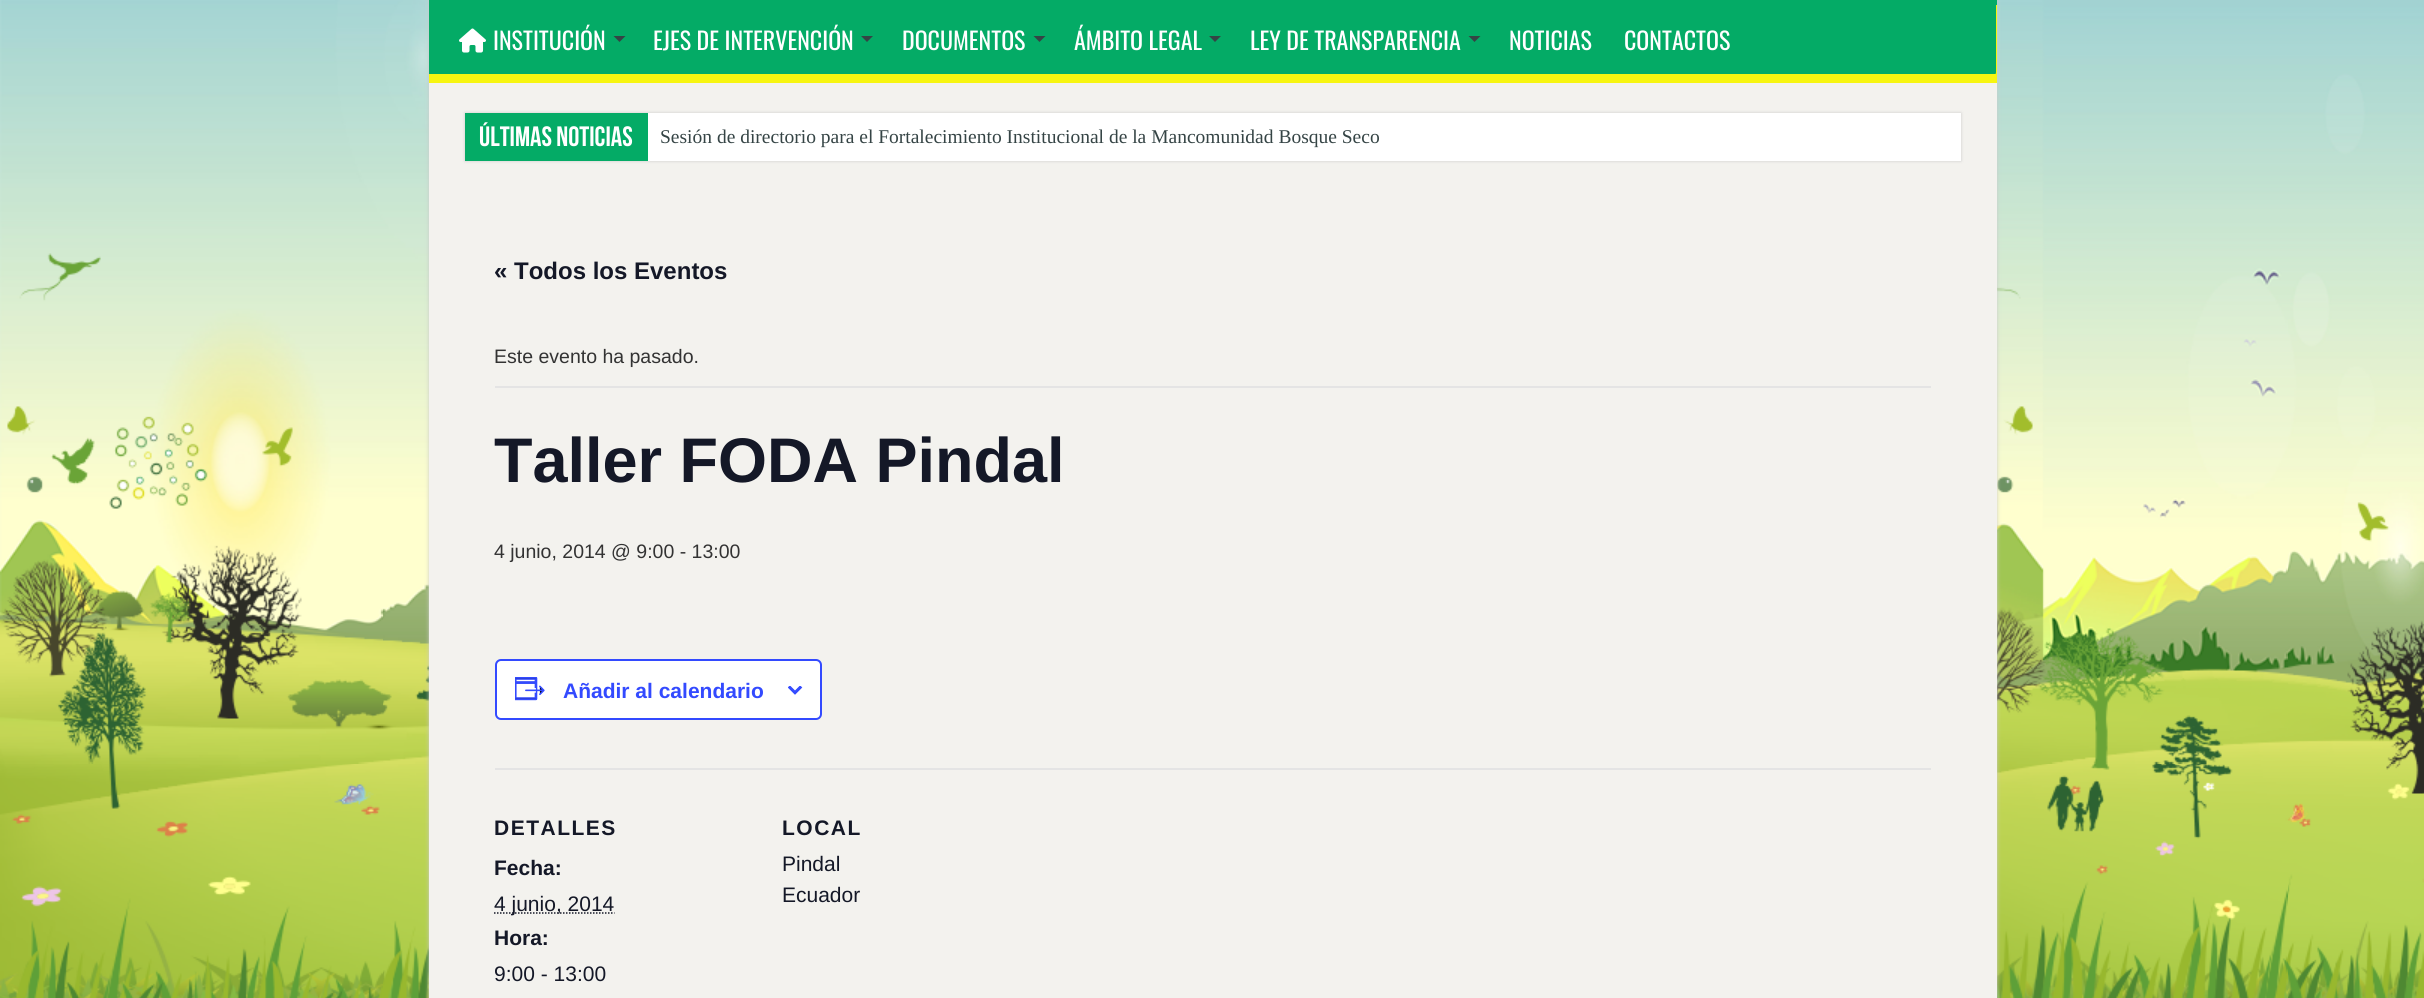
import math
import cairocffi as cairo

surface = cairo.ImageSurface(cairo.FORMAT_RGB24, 2424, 998)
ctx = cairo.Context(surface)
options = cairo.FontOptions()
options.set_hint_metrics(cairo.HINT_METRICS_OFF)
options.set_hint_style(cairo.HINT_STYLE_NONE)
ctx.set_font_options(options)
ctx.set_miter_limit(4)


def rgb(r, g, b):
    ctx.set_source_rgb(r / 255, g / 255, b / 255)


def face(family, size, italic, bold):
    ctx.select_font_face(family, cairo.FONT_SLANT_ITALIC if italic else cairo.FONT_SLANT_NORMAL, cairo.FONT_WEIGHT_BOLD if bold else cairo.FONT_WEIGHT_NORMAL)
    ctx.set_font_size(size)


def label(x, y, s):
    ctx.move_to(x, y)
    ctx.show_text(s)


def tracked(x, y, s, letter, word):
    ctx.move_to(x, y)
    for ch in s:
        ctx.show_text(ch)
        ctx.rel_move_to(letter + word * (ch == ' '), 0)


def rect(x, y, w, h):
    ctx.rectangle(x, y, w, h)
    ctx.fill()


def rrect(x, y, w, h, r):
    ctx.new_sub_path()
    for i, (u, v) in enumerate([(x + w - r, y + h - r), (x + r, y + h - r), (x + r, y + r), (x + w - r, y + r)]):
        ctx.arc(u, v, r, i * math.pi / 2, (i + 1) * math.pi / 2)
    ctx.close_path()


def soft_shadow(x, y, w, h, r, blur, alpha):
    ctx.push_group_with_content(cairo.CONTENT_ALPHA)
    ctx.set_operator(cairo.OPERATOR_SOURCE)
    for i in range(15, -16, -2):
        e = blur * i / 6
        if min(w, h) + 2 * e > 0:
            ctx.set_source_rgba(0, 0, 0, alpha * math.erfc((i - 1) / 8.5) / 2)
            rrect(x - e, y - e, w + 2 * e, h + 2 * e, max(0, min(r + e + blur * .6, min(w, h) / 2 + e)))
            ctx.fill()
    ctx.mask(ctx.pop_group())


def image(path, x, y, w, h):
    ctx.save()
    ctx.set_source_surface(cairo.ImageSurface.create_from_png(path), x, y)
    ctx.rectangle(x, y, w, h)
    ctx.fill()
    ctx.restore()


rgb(255, 255, 255)
ctx.paint()
image('image0.png', 0, 0, 2424, 998)
rgb(202, 202, 202)
soft_shadow(429, 0, 1568, 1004, 0, 2, 1)
rgb(243, 242, 238)
rect(429, 83, 1568, 915)
rgb(4, 171, 102)
rect(429, 0, 1568, 5)
rect(429, 5, 1567, 69)
ctx.save()
ctx.rectangle(429, 5, 1568, 75)
ctx.clip()
rgb(247, 245, 16)
ctx.set_fill_rule(cairo.FILL_RULE_EVEN_ODD)
ctx.new_path()
ctx.move_to(280, -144)
ctx.line_to(2145, -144)
ctx.line_to(2145, 228)
ctx.line_to(280, 228)
ctx.close_path()
ctx.move_to(428, -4)
ctx.line_to(1995, -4)
ctx.curve_to(1996, -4, 1996, -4, 1996, -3)
ctx.line_to(1996, 72)
ctx.curve_to(1996, 73, 1996, 74, 1995, 74)
ctx.line_to(428, 74)
ctx.curve_to(427, 74, 426, 73, 426, 72)
ctx.line_to(426, -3)
ctx.curve_to(426, -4, 427, -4, 428, -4)
ctx.close_path()
ctx.fill()
ctx.restore()
rgb(247, 245, 16)
rect(429, 80, 1568, 3)
image('image1.png', 459, 28, 27, 25)
face('Oswald', 24, 0, 0)
rgb(255, 255, 255)
label(493, 50, 'INSTITUCIÓN')
rgb(53, 68, 69)
ctx.new_path()
ctx.move_to(613.5, 36)
ctx.line_to(625.5, 36)
ctx.line_to(619.5, 42)
ctx.close_path()
ctx.fill()
rgb(255, 255, 255)
label(653, 50, 'EJES DE INTERVENCIÓN')
rgb(53, 68, 69)
ctx.new_path()
ctx.move_to(861, 36)
ctx.line_to(873, 36)
ctx.line_to(867, 42)
ctx.close_path()
ctx.fill()
rgb(255, 255, 255)
label(902, 50, 'DOCUMENTOS')
rgb(53, 68, 69)
ctx.new_path()
ctx.move_to(1033.5, 36)
ctx.line_to(1045.5, 36)
ctx.line_to(1039.5, 42)
ctx.close_path()
ctx.fill()
rgb(255, 255, 255)
label(1074, 50, 'ÁMBITO LEGAL')
rgb(53, 68, 69)
ctx.new_path()
ctx.move_to(1209, 36)
ctx.line_to(1221, 36)
ctx.line_to(1215, 42)
ctx.close_path()
ctx.fill()
rgb(255, 255, 255)
label(1250, 50, 'LEY DE TRANSPARENCIA')
rgb(53, 68, 69)
ctx.new_path()
ctx.move_to(1468.5, 36)
ctx.line_to(1480.5, 36)
ctx.line_to(1474.5, 42)
ctx.close_path()
ctx.fill()
rgb(255, 255, 255)
label(1509, 50, 'NOTICIAS')
label(1624, 50, 'CONTACTOS')
rgb(202, 202, 202)
soft_shadow(465, 113, 1496, 48, 0, 1.5, 1)
rgb(255, 255, 255)
rect(648, 113, 1313, 48)
rgb(4, 171, 102)
rect(465, 113, 183, 48)
face('Bebas Neue', 28, 0, 1)
rgb(255, 255, 255)
label(479, 146, 'Últimas noticias')
face('Liberation Serif', 19.5, 0, 0)
rgb(53, 68, 69)
label(660, 143, 'Sesión de directorio para el Fortalecimiento Institucional de la Mancomunidad Bosque Seco')
face('Liberation Sans', 24, 0, 1)
rgb(20, 24, 39)
label(494, 279, '« Todos los Eventos')
rgb(228, 228, 228)
rect(495, 386, 1436, 2)
face('Liberation Sans', 19.5, 0, 0)
rgb(51, 51, 51)
label(494, 363, 'Este evento ha pasado.')
face('Liberation Sans', 63, 0, 1)
rgb(20, 24, 39)
label(494, 482, 'Taller FODA Pindal')
face('Liberation Sans', 19.5, 0, 0)
rgb(51, 51, 51)
label(494, 558, '4 junio, 2014 @ 9:00 - 13:00')
rgb(255, 255, 255)
rrect(496, 660, 325, 59, 5)
ctx.fill_preserve()
rgb(51, 74, 255)
ctx.stroke()
image('image2.png', 515, 677, 30, 24)
face('Liberation Sans', 21, 0, 1)
label(563, 698, 'Añadir al calendario')
image('image3.png', 788, 686, 15, 9)
rgb(228, 228, 228)
rect(495, 768, 1436, 2)
rgb(20, 24, 39)
tracked(494, 835, 'DETALLES', 1.5, 0)
label(494, 875, 'Fecha:')
ctx.new_path()
ctx.move_to(494, 913)
ctx.line_to(614.5, 913)
ctx.set_line_width(1.5)
ctx.set_dash([1.5, 1.5])
ctx.stroke()
face('Liberation Sans', 21, 0, 0)
label(494, 911, '4 junio, 2014')
face('Liberation Sans', 21, 0, 1)
label(494, 945, 'Hora:')
face('Liberation Sans', 21, 0, 0)
label(494, 981, '9:00 - 13:00')
face('Liberation Sans', 21, 0, 1)
tracked(782, 835, 'LOCAL', 1.5, 0)
face('Liberation Sans', 21, 0, 0)
label(782, 871, 'Pindal')
label(782, 902, 'Ecuador')
surface.write_to_png('render.png')
